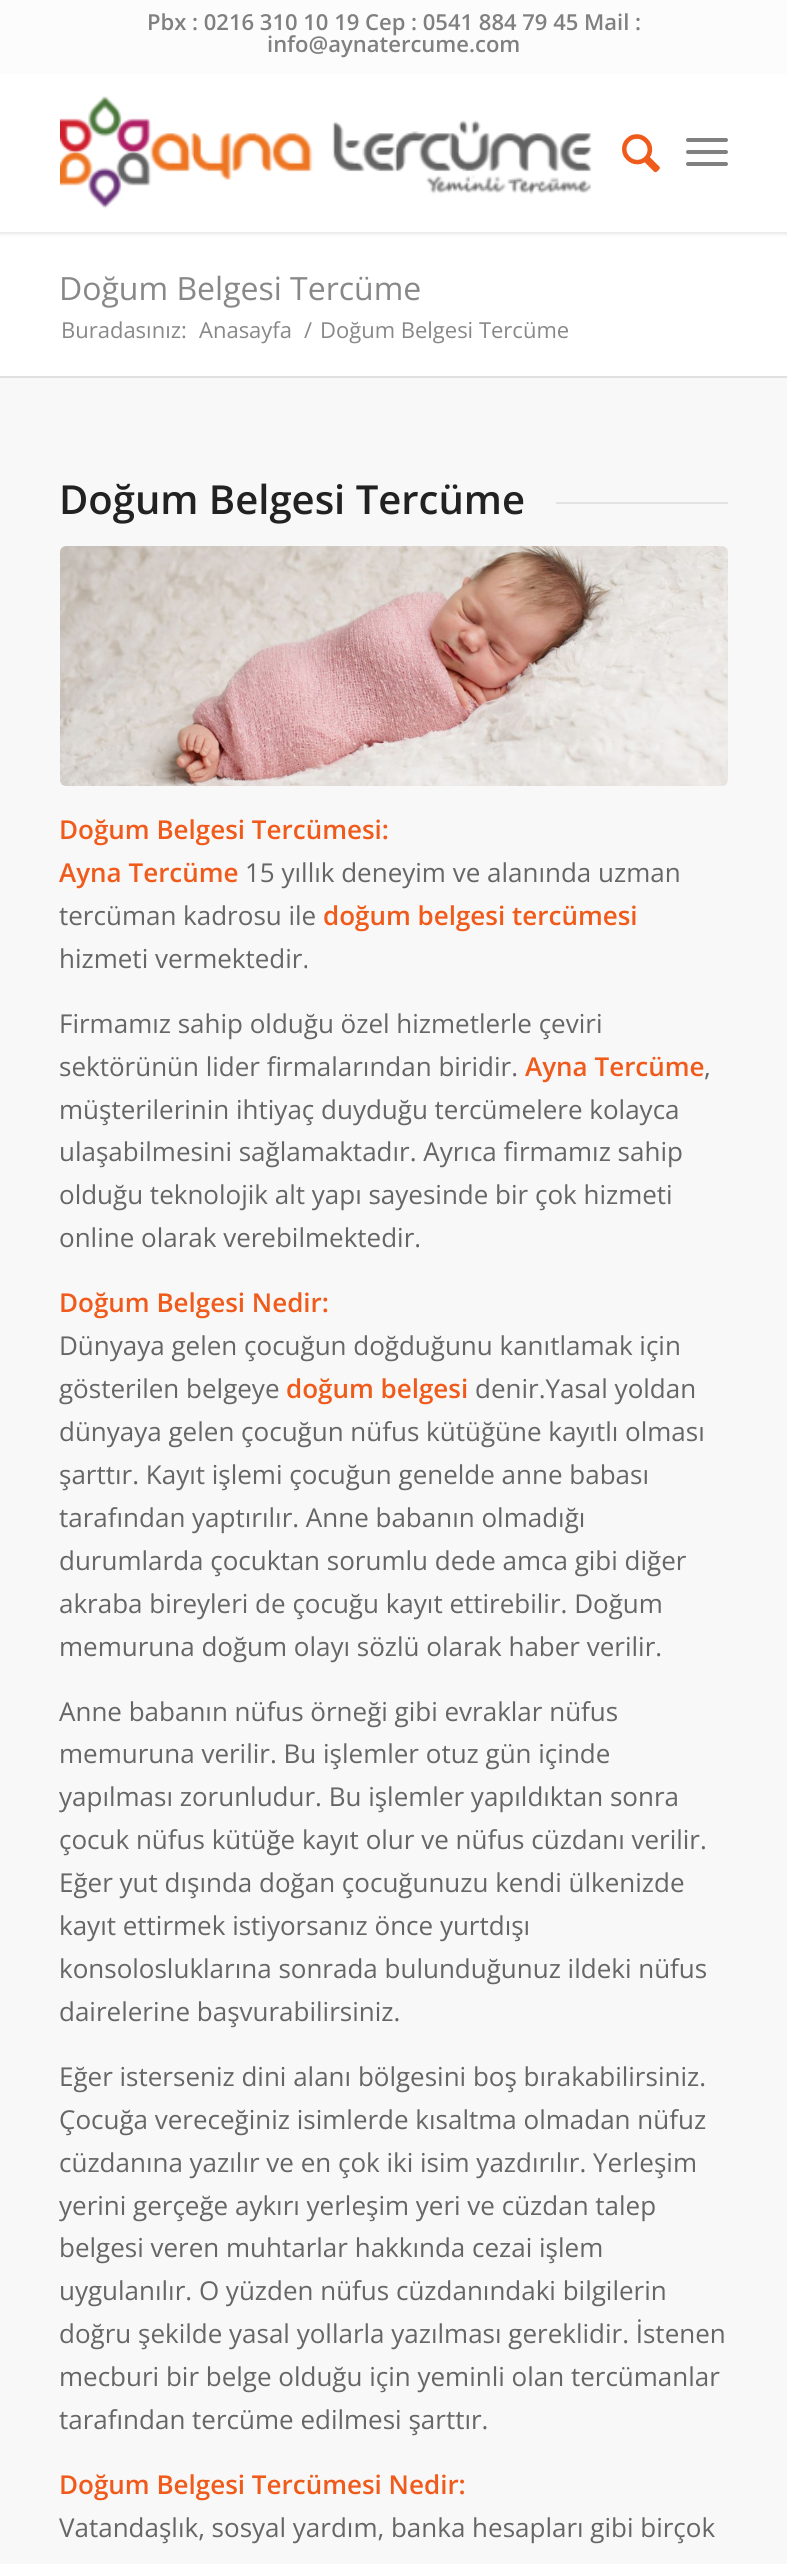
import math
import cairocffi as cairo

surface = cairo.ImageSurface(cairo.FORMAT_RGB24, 787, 2564)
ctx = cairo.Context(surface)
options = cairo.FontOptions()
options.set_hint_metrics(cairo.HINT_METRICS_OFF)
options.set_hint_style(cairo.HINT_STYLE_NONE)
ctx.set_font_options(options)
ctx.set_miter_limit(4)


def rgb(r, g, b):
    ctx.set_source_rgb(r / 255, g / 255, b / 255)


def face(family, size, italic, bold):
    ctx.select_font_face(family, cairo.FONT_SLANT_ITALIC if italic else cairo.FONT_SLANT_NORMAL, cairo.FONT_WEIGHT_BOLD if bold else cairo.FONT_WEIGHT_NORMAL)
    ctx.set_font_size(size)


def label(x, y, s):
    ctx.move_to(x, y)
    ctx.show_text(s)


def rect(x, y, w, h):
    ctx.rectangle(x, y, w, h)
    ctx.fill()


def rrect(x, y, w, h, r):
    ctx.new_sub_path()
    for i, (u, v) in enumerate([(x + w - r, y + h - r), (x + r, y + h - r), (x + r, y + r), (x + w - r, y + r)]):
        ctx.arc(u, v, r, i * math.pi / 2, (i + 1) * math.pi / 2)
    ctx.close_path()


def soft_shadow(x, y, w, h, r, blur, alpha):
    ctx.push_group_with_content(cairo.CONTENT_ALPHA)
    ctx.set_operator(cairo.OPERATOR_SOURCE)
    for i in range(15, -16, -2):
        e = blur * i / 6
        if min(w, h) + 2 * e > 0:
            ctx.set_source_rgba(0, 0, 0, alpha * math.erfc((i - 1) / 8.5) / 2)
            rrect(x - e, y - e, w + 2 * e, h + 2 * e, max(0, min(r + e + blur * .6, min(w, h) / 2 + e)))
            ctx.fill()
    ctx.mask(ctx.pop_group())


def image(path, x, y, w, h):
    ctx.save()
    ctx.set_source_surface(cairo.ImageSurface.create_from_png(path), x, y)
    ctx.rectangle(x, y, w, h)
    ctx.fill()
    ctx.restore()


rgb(255, 255, 255)
ctx.paint()
rgb(0, 0, 0)
soft_shadow(-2, -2, 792, 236, 0, 2, 0.1)
rgb(252, 252, 252)
rect(0, 0, 787, 74)
face('Open Sans SemiBold', 22, 0, 0)
rgb(128, 128, 128)
label(147, 30, 'Pbx : 0216 310 10 19 Cep : 0541 884 79 45 Mail :')
label(267, 52, 'info@aynatercume.com')
rgb(255, 255, 255)
rect(0, 74, 787, 158)
image('image0.png', 60, 95, 532, 114)
image('image1.png', 622, 134, 38, 39)
rgb(128, 128, 128)
rrect(686, 150, 42, 4, 2)
ctx.fill()
rrect(686, 138, 42, 4, 2)
ctx.fill()
rrect(686, 162, 42, 4, 2)
ctx.fill()
face('Open Sans', 32, 0, 0)
rgb(136, 136, 136)
label(59, 300, 'Doğum Belgesi Tercüme')
face('Open Sans', 22, 0, 0)
label(61, 338, 'Buradasınız:')
label(199, 338, 'Anasayfa')
label(304, 338, '/')
label(320, 338, 'Doğum Belgesi Tercüme')
rgb(248, 248, 248)
rect(0, 378, 787, 2186)
rgb(225, 225, 225)
rect(0, 376, 787, 2)
face('Open Sans SemiBold', 40, 0, 0)
rgb(34, 34, 34)
label(59, 514, 'Doğum Belgesi Tercüme')
rgb(226, 226, 226)
rect(556, 502, 172, 2)
image('image2.png', 60, 546, 668, 240)
face('Open Sans SemiBold', 26, 0, 0)
rgb(240, 90, 26)
label(59, 839, 'Doğum Belgesi Tercümesi:')
label(59, 882, 'Ayna Tercüme')
face('Open Sans', 26, 0, 0)
rgb(102, 102, 102)
label(245, 882, '15 yıllık deneyim ve alanında uzman')
label(59, 925, 'tercüman kadrosu ile')
face('Open Sans SemiBold', 26, 0, 0)
rgb(240, 90, 26)
label(323, 925, 'doğum belgesi tercümesi')
face('Open Sans', 26, 0, 0)
rgb(102, 102, 102)
label(59, 968, 'hizmeti vermektedir.')
label(59, 1033, 'Firmamız sahip olduğu özel hizmetlerle çeviri')
label(59, 1076, 'sektörünün lider firmalarından biridir.')
face('Open Sans SemiBold', 26, 0, 0)
rgb(240, 90, 26)
label(525, 1076, 'Ayna Tercüme')
face('Open Sans', 26, 0, 0)
rgb(102, 102, 102)
label(704, 1076, ',')
label(59, 1119, 'müşterilerinin ihtiyaç duyduğu tercümelere kolayca')
label(59, 1161, 'ulaşabilmesini sağlamaktadır. Ayrıca firmamız sahip')
label(59, 1204, 'olduğu teknolojik alt yapı sayesinde bir çok hizmeti')
label(59, 1247, 'online olarak verebilmektedir.')
face('Open Sans SemiBold', 26, 0, 0)
rgb(240, 90, 26)
label(59, 1312, 'Doğum Belgesi Nedir:')
face('Open Sans', 26, 0, 0)
rgb(102, 102, 102)
label(59, 1355, 'Dünyaya gelen çocuğun doğduğunu kanıtlamak için')
label(59, 1398, 'gösterilen belgeye')
face('Open Sans SemiBold', 26, 0, 0)
rgb(240, 90, 26)
label(286, 1398, 'doğum belgesi')
face('Open Sans', 26, 0, 0)
rgb(102, 102, 102)
label(475, 1398, 'denir.Yasal yoldan')
label(59, 1441, 'dünyaya gelen çocuğun nüfus kütüğüne kayıtlı olması')
label(59, 1484, 'şarttır. Kayıt işlemi çocuğun genelde anne babası')
label(59, 1527, 'tarafından yaptırılır. Anne babanın olmadığı')
label(59, 1570, 'durumlarda çocuktan sorumlu dede amca gibi diğer')
label(59, 1613, 'akraba bireyleri de çocuğu kayıt ettirebilir. Doğum')
label(59, 1656, 'memuruna doğum olayı sözlü olarak haber verilir.')
label(59, 1721, 'Anne babanın nüfus örneği gibi evraklar nüfus')
label(59, 1763, 'memuruna verilir. Bu işlemler otuz gün içinde')
label(59, 1806, 'yapılması zorunludur. Bu işlemler yapıldıktan sonra')
label(59, 1849, 'çocuk nüfus kütüğe kayıt olur ve nüfus cüzdanı verilir.')
label(59, 1892, 'Eğer yut dışında doğan çocuğunuzu kendi ülkenizde')
label(59, 1935, 'kayıt ettirmek istiyorsanız önce yurtdışı')
label(59, 1978, 'konsolosluklarına sonrada bulunduğunuz ildeki nüfus')
label(59, 2021, 'dairelerine başvurabilirsiniz.')
label(59, 2086, 'Eğer isterseniz dini alanı bölgesini boş bırakabilirsiniz.')
label(59, 2129, 'Çocuğa vereceğiniz isimlerde kısaltma olmadan nüfuz')
label(59, 2172, 'cüzdanına yazılır ve en çok iki isim yazdırılır. Yerleşim')
label(59, 2215, 'yerini gerçeğe aykırı yerleşim yeri ve cüzdan talep')
label(59, 2257, 'belgesi veren muhtarlar hakkında cezai işlem')
label(59, 2300, 'uygulanılır. O yüzden nüfus cüzdanındaki bilgilerin')
label(59, 2343, 'doğru şekilde yasal yollarla yazılması gereklidir. İstenen')
label(59, 2386, 'mecburi bir belge olduğu için yeminli olan tercümanlar')
label(59, 2429, 'tarafından tercüme edilmesi şarttır.')
face('Open Sans SemiBold', 26, 0, 0)
rgb(240, 90, 26)
label(59, 2494, 'Doğum Belgesi Tercümesi Nedir:')
face('Open Sans', 26, 0, 0)
rgb(102, 102, 102)
label(59, 2537, 'Vatandaşlık, sosyal yardım, banka hesapları gibi birçok')
surface.write_to_png('render.png')
